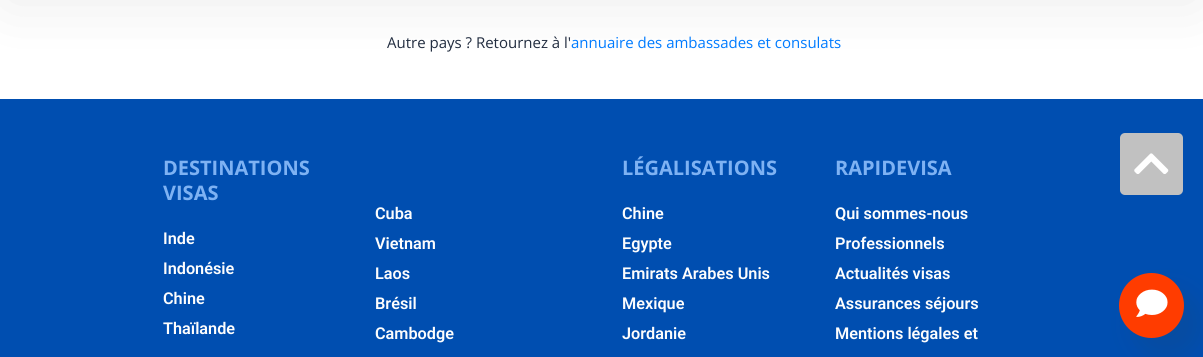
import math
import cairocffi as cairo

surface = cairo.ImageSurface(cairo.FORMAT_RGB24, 1203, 357)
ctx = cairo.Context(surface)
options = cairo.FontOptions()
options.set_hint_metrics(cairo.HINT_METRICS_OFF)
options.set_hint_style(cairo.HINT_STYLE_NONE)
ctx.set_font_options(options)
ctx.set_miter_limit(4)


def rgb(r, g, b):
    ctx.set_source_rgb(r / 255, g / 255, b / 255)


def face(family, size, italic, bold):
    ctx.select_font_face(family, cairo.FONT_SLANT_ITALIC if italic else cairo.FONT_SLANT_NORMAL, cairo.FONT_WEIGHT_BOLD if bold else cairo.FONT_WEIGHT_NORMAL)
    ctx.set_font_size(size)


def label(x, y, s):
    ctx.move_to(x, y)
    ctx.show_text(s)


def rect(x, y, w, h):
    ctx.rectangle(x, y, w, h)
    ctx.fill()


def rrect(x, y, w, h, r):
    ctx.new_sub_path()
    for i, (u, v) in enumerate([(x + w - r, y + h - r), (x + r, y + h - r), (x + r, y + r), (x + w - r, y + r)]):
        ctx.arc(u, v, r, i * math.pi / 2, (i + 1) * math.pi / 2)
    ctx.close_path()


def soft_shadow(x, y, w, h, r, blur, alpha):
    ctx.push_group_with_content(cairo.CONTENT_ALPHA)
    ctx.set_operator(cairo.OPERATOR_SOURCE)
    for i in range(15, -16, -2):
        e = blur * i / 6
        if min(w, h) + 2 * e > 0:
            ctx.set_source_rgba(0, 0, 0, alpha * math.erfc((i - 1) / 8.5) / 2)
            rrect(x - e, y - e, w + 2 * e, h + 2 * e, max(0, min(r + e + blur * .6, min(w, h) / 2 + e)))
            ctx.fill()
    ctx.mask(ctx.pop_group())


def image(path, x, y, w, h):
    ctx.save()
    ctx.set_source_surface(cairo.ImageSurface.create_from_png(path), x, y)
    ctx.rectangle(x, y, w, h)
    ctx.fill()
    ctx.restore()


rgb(255, 255, 255)
ctx.paint()
rgb(0, 0, 0)
soft_shadow(6, -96, 1192, 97, 0, 32, 0.08)
face('Open Sans', 15, 0, 0)
rgb(34, 45, 64)
label(387, 48, 'Autre pays ? Retournez à l\'')
rgb(0, 123, 255)
label(571, 48, 'annuaire des ambassades et consulats')
rgb(0, 78, 176)
rect(0, 99, 1203, 258)
face('Open Sans', 20, 0, 1)
rgb(126, 178, 243)
label(163, 175, 'DESTINATIONS')
label(163, 200, 'VISAS')
face('Roboto SemiBold', 16.25, 0, 0)
rgb(253, 253, 253)
label(163, 244, 'Inde')
label(163, 274, 'Indonésie')
label(163, 304, 'Chine')
label(163, 334, 'Thaïlande')
label(375, 219, 'Cuba')
label(375, 249, 'Vietnam')
label(375, 279, 'Laos')
label(375, 309, 'Brésil')
label(375, 339, 'Cambodge')
face('Open Sans', 20, 0, 1)
rgb(126, 178, 243)
label(622, 175, 'LÉGALISATIONS')
face('Roboto SemiBold', 16.25, 0, 0)
rgb(253, 253, 253)
label(622, 219, 'Chine')
label(622, 249, 'Egypte')
label(622, 279, 'Emirats Arabes Unis')
label(622, 309, 'Mexique')
label(622, 339, 'Jordanie')
face('Open Sans', 20, 0, 1)
rgb(126, 178, 243)
label(835, 175, 'RAPIDEVISA')
face('Roboto SemiBold', 16.25, 0, 0)
rgb(253, 253, 253)
label(835, 219, 'Qui sommes-nous')
label(835, 249, 'Professionnels')
label(835, 279, 'Actualités visas')
label(835, 309, 'Assurances séjours')
label(835, 339, 'Mentions légales et')
rgb(193, 193, 193)
rrect(1120, 133, 63, 62, 5)
ctx.fill()
image('image0.png', 1134, 153, 35, 21)
rgb(46, 61, 73)
soft_shadow(1134, 291, 65, 65, 32.5, 12.5, 0.15)
rgb(255, 60, 0)
ctx.arc(1151.5, 305.5, 32.5, 0, 2 * math.pi)
ctx.fill()
image('image1.png', 1136, 289, 32, 28)
surface.write_to_png('render.png')
